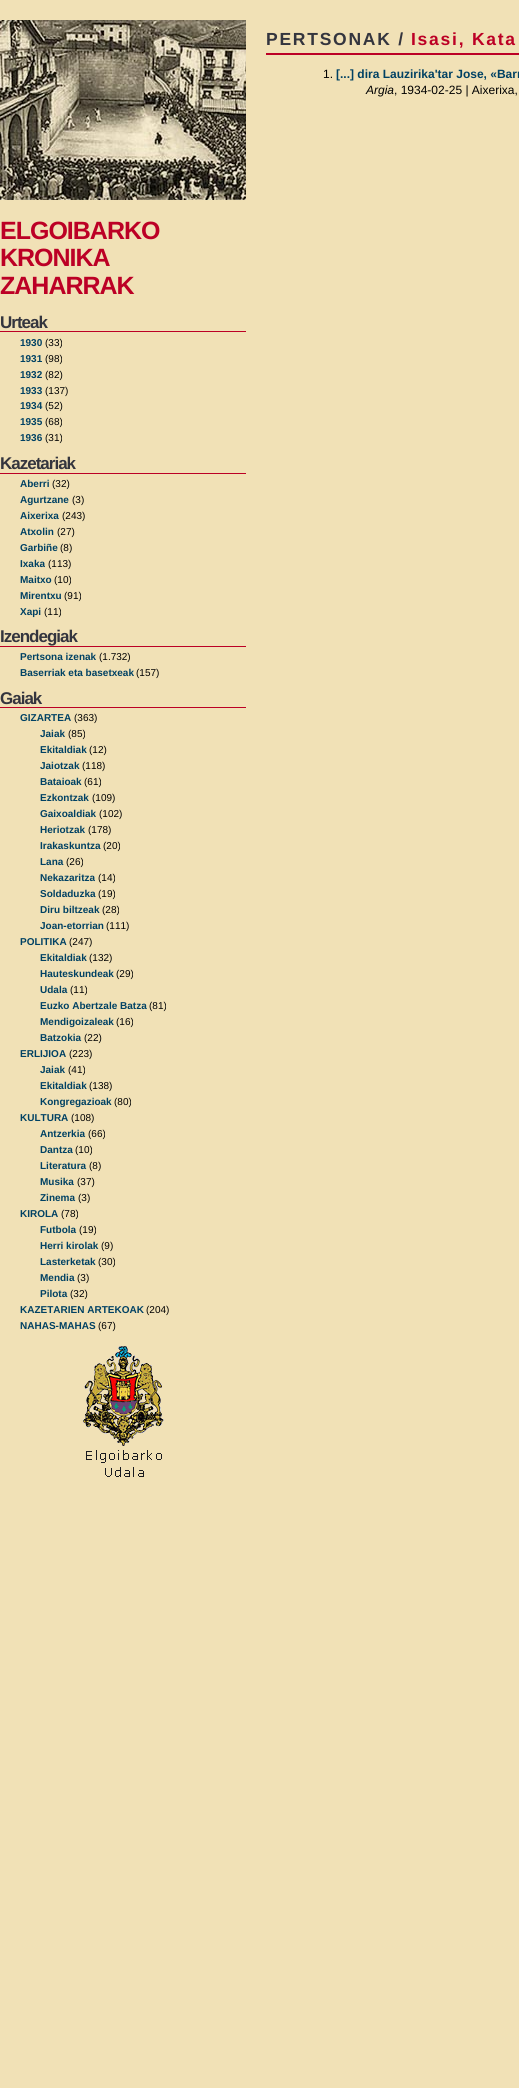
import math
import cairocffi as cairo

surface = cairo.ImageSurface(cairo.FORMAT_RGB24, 519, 2088)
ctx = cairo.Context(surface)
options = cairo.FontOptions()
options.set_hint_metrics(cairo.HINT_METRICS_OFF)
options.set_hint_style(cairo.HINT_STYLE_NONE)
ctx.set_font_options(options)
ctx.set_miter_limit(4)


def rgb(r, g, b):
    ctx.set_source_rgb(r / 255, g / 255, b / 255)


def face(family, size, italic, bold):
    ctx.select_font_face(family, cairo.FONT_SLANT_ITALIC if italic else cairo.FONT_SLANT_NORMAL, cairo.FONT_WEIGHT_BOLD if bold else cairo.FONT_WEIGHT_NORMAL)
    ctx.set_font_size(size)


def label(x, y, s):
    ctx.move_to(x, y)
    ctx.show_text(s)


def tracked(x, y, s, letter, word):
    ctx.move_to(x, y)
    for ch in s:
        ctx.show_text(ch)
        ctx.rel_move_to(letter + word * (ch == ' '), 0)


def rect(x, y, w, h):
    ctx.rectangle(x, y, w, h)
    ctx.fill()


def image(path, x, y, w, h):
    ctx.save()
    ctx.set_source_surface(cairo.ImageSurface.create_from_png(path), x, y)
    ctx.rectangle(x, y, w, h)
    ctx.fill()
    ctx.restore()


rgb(241, 225, 182)
ctx.paint()
rgb(188, 0, 37)
rect(266, 53, 253, 2)
face('Liberation Sans', 17.5, 0, 1)
rgb(52, 53, 62)
tracked(266, 45, 'PERTSONAK /', 1.75, 0)
rgb(188, 0, 37)
tracked(411, 45, 'Isasi, Kata', 1.75, 0)
face('Liberation Sans', 12, 0, 0)
rgb(0, 0, 0)
label(323, 78, '1.')
face('Liberation Sans', 12, 0, 1)
rgb(0, 65, 99)
label(336, 78, '[...] dira Lauzirika\'tar Jose, «Barr')
face('Liberation Sans', 12, 1, 0)
rgb(0, 0, 0)
label(366, 94, 'Argia')
face('Liberation Sans', 12, 0, 0)
label(394, 94, ', 1934-02-25 | Aixerixa,')
image('image0.png', 0, 20, 246, 180)
face('Liberation Sans', 25, 0, 1)
rgb(188, 0, 37)
tracked(0, 239, 'ELGOIBARKO', -1, 0)
tracked(0, 266, 'KRONIKA', -1, 0)
tracked(0, 294, 'ZAHARRAK', -1, 0)
rect(0, 331, 246, 1)
face('Liberation Sans', 17, 0, 1)
rgb(52, 53, 62)
tracked(0, 328, 'Urteak', -1, 0)
face('Liberation Sans', 10, 0, 1)
rgb(0, 65, 99)
label(20, 346, '1930')
face('Liberation Sans', 10, 0, 0)
rgb(0, 0, 0)
label(45, 346, '(33)')
face('Liberation Sans', 10, 0, 1)
rgb(0, 65, 99)
label(20, 362, '1931')
face('Liberation Sans', 10, 0, 0)
rgb(0, 0, 0)
label(45, 362, '(98)')
face('Liberation Sans', 10, 0, 1)
rgb(0, 65, 99)
label(20, 378, '1932')
face('Liberation Sans', 10, 0, 0)
rgb(0, 0, 0)
label(45, 378, '(82)')
face('Liberation Sans', 10, 0, 1)
rgb(0, 65, 99)
label(20, 394, '1933')
face('Liberation Sans', 10, 0, 0)
rgb(0, 0, 0)
label(45, 394, '(137)')
face('Liberation Sans', 10, 0, 1)
rgb(0, 65, 99)
label(20, 409, '1934')
face('Liberation Sans', 10, 0, 0)
rgb(0, 0, 0)
label(45, 409, '(52)')
face('Liberation Sans', 10, 0, 1)
rgb(0, 65, 99)
label(20, 425, '1935')
face('Liberation Sans', 10, 0, 0)
rgb(0, 0, 0)
label(45, 425, '(68)')
face('Liberation Sans', 10, 0, 1)
rgb(0, 65, 99)
label(20, 441, '1936')
face('Liberation Sans', 10, 0, 0)
rgb(0, 0, 0)
label(45, 441, '(31)')
rgb(188, 0, 37)
rect(0, 473, 246, 1)
face('Liberation Sans', 17, 0, 1)
rgb(52, 53, 62)
tracked(0, 469, 'Kazetariak', -1, 0)
face('Liberation Sans', 10, 0, 1)
rgb(0, 65, 99)
label(20, 487, 'Aberri')
face('Liberation Sans', 10, 0, 0)
rgb(0, 0, 0)
label(52, 487, '(32)')
face('Liberation Sans', 10, 0, 1)
rgb(0, 65, 99)
label(20, 503, 'Agurtzane')
face('Liberation Sans', 10, 0, 0)
rgb(0, 0, 0)
label(72, 503, '(3)')
face('Liberation Sans', 10, 0, 1)
rgb(0, 65, 99)
label(20, 519, 'Aixerixa')
face('Liberation Sans', 10, 0, 0)
rgb(0, 0, 0)
label(62, 519, '(243)')
face('Liberation Sans', 10, 0, 1)
rgb(0, 65, 99)
label(20, 535, 'Atxolin')
face('Liberation Sans', 10, 0, 0)
rgb(0, 0, 0)
label(57, 535, '(27)')
face('Liberation Sans', 10, 0, 1)
rgb(0, 65, 99)
label(20, 551, 'Garbiñe')
face('Liberation Sans', 10, 0, 0)
rgb(0, 0, 0)
label(60, 551, '(8)')
face('Liberation Sans', 10, 0, 1)
rgb(0, 65, 99)
label(20, 567, 'Ixaka')
face('Liberation Sans', 10, 0, 0)
rgb(0, 0, 0)
label(48, 567, '(113)')
face('Liberation Sans', 10, 0, 1)
rgb(0, 65, 99)
label(20, 583, 'Maitxo')
face('Liberation Sans', 10, 0, 0)
rgb(0, 0, 0)
label(54, 583, '(10)')
face('Liberation Sans', 10, 0, 1)
rgb(0, 65, 99)
label(20, 599, 'Mirentxu')
face('Liberation Sans', 10, 0, 0)
rgb(0, 0, 0)
label(64, 599, '(91)')
face('Liberation Sans', 10, 0, 1)
rgb(0, 65, 99)
label(20, 615, 'Xapi')
face('Liberation Sans', 10, 0, 0)
rgb(0, 0, 0)
label(44, 615, '(11)')
rgb(188, 0, 37)
rect(0, 646, 246, 1)
face('Liberation Sans', 17, 0, 1)
rgb(52, 53, 62)
tracked(0, 642, 'Izendegiak', -1, 0)
face('Liberation Sans', 10, 0, 1)
rgb(0, 65, 99)
label(20, 660, 'Pertsona izenak')
face('Liberation Sans', 10, 0, 0)
rgb(0, 0, 0)
label(99, 660, '(1.732)')
face('Liberation Sans', 10, 0, 1)
rgb(0, 65, 99)
label(20, 676, 'Baserriak eta basetxeak')
face('Liberation Sans', 10, 0, 0)
rgb(0, 0, 0)
label(136, 676, '(157)')
rgb(188, 0, 37)
rect(0, 707, 246, 1)
face('Liberation Sans', 17, 0, 1)
rgb(52, 53, 62)
tracked(0, 704, 'Gaiak', -1, 0)
face('Liberation Sans', 10, 0, 1)
rgb(0, 65, 99)
label(20, 721, 'GIZARTEA')
face('Liberation Sans', 10, 0, 0)
rgb(0, 0, 0)
label(74, 721, '(363)')
face('Liberation Sans', 10, 0, 1)
rgb(0, 65, 99)
label(40, 737, 'Jaiak')
face('Liberation Sans', 10, 0, 0)
rgb(0, 0, 0)
label(68, 737, '(85)')
face('Liberation Sans', 10, 0, 1)
rgb(0, 65, 99)
label(40, 753, 'Ekitaldiak')
face('Liberation Sans', 10, 0, 0)
rgb(0, 0, 0)
label(89, 753, '(12)')
face('Liberation Sans', 10, 0, 1)
rgb(0, 65, 99)
label(40, 769, 'Jaiotzak')
face('Liberation Sans', 10, 0, 0)
rgb(0, 0, 0)
label(82, 769, '(118)')
face('Liberation Sans', 10, 0, 1)
rgb(0, 65, 99)
label(40, 785, 'Bataioak')
face('Liberation Sans', 10, 0, 0)
rgb(0, 0, 0)
label(84, 785, '(61)')
face('Liberation Sans', 10, 0, 1)
rgb(0, 65, 99)
label(40, 801, 'Ezkontzak')
face('Liberation Sans', 10, 0, 0)
rgb(0, 0, 0)
label(92, 801, '(109)')
face('Liberation Sans', 10, 0, 1)
rgb(0, 65, 99)
label(40, 817, 'Gaixoaldiak')
face('Liberation Sans', 10, 0, 0)
rgb(0, 0, 0)
label(99, 817, '(102)')
face('Liberation Sans', 10, 0, 1)
rgb(0, 65, 99)
label(40, 833, 'Heriotzak')
face('Liberation Sans', 10, 0, 0)
rgb(0, 0, 0)
label(88, 833, '(178)')
face('Liberation Sans', 10, 0, 1)
rgb(0, 65, 99)
label(40, 849, 'Irakaskuntza')
face('Liberation Sans', 10, 0, 0)
rgb(0, 0, 0)
label(103, 849, '(20)')
face('Liberation Sans', 10, 0, 1)
rgb(0, 65, 99)
label(40, 865, 'Lana')
face('Liberation Sans', 10, 0, 0)
rgb(0, 0, 0)
label(66, 865, '(26)')
face('Liberation Sans', 10, 0, 1)
rgb(0, 65, 99)
label(40, 881, 'Nekazaritza')
face('Liberation Sans', 10, 0, 0)
rgb(0, 0, 0)
label(98, 881, '(14)')
face('Liberation Sans', 10, 0, 1)
rgb(0, 65, 99)
label(40, 897, 'Soldaduzka')
face('Liberation Sans', 10, 0, 0)
rgb(0, 0, 0)
label(98, 897, '(19)')
face('Liberation Sans', 10, 0, 1)
rgb(0, 65, 99)
label(40, 913, 'Diru biltzeak')
face('Liberation Sans', 10, 0, 0)
rgb(0, 0, 0)
label(102, 913, '(28)')
face('Liberation Sans', 10, 0, 1)
rgb(0, 65, 99)
label(40, 929, 'Joan-etorrian')
face('Liberation Sans', 10, 0, 0)
rgb(0, 0, 0)
label(106, 929, '(111)')
face('Liberation Sans', 10, 0, 1)
rgb(0, 65, 99)
label(20, 945, 'POLITIKA')
face('Liberation Sans', 10, 0, 0)
rgb(0, 0, 0)
label(69, 945, '(247)')
face('Liberation Sans', 10, 0, 1)
rgb(0, 65, 99)
label(40, 961, 'Ekitaldiak')
face('Liberation Sans', 10, 0, 0)
rgb(0, 0, 0)
label(89, 961, '(132)')
face('Liberation Sans', 10, 0, 1)
rgb(0, 65, 99)
label(40, 977, 'Hauteskundeak')
face('Liberation Sans', 10, 0, 0)
rgb(0, 0, 0)
label(116, 977, '(29)')
face('Liberation Sans', 10, 0, 1)
rgb(0, 65, 99)
label(40, 993, 'Udala')
face('Liberation Sans', 10, 0, 0)
rgb(0, 0, 0)
label(70, 993, '(11)')
face('Liberation Sans', 10, 0, 1)
rgb(0, 65, 99)
label(40, 1009, 'Euzko Abertzale Batza')
face('Liberation Sans', 10, 0, 0)
rgb(0, 0, 0)
label(149, 1009, '(81)')
face('Liberation Sans', 10, 0, 1)
rgb(0, 65, 99)
label(40, 1025, 'Mendigoizaleak')
face('Liberation Sans', 10, 0, 0)
rgb(0, 0, 0)
label(116, 1025, '(16)')
face('Liberation Sans', 10, 0, 1)
rgb(0, 65, 99)
label(40, 1041, 'Batzokia')
face('Liberation Sans', 10, 0, 0)
rgb(0, 0, 0)
label(84, 1041, '(22)')
face('Liberation Sans', 10, 0, 1)
rgb(0, 65, 99)
label(20, 1057, 'ERLIJIOA')
face('Liberation Sans', 10, 0, 0)
rgb(0, 0, 0)
label(69, 1057, '(223)')
face('Liberation Sans', 10, 0, 1)
rgb(0, 65, 99)
label(40, 1073, 'Jaiak')
face('Liberation Sans', 10, 0, 0)
rgb(0, 0, 0)
label(68, 1073, '(41)')
face('Liberation Sans', 10, 0, 1)
rgb(0, 65, 99)
label(40, 1089, 'Ekitaldiak')
face('Liberation Sans', 10, 0, 0)
rgb(0, 0, 0)
label(89, 1089, '(138)')
face('Liberation Sans', 10, 0, 1)
rgb(0, 65, 99)
label(40, 1105, 'Kongregazioak')
face('Liberation Sans', 10, 0, 0)
rgb(0, 0, 0)
label(114, 1105, '(80)')
face('Liberation Sans', 10, 0, 1)
rgb(0, 65, 99)
label(20, 1121, 'KULTURA')
face('Liberation Sans', 10, 0, 0)
rgb(0, 0, 0)
label(71, 1121, '(108)')
face('Liberation Sans', 10, 0, 1)
rgb(0, 65, 99)
label(40, 1137, 'Antzerkia')
face('Liberation Sans', 10, 0, 0)
rgb(0, 0, 0)
label(88, 1137, '(66)')
face('Liberation Sans', 10, 0, 1)
rgb(0, 65, 99)
label(40, 1153, 'Dantza')
face('Liberation Sans', 10, 0, 0)
rgb(0, 0, 0)
label(75, 1153, '(10)')
face('Liberation Sans', 10, 0, 1)
rgb(0, 65, 99)
label(40, 1169, 'Literatura')
face('Liberation Sans', 10, 0, 0)
rgb(0, 0, 0)
label(89, 1169, '(8)')
face('Liberation Sans', 10, 0, 1)
rgb(0, 65, 99)
label(40, 1185, 'Musika')
face('Liberation Sans', 10, 0, 0)
rgb(0, 0, 0)
label(77, 1185, '(37)')
face('Liberation Sans', 10, 0, 1)
rgb(0, 65, 99)
label(40, 1201, 'Zinema')
face('Liberation Sans', 10, 0, 0)
rgb(0, 0, 0)
label(78, 1201, '(3)')
face('Liberation Sans', 10, 0, 1)
rgb(0, 65, 99)
label(20, 1217, 'KIROLA')
face('Liberation Sans', 10, 0, 0)
rgb(0, 0, 0)
label(61, 1217, '(78)')
face('Liberation Sans', 10, 0, 1)
rgb(0, 65, 99)
label(40, 1233, 'Futbola')
face('Liberation Sans', 10, 0, 0)
rgb(0, 0, 0)
label(79, 1233, '(19)')
face('Liberation Sans', 10, 0, 1)
rgb(0, 65, 99)
label(40, 1249, 'Herri kirolak')
face('Liberation Sans', 10, 0, 0)
rgb(0, 0, 0)
label(101, 1249, '(9)')
face('Liberation Sans', 10, 0, 1)
rgb(0, 65, 99)
label(40, 1265, 'Lasterketak')
face('Liberation Sans', 10, 0, 0)
rgb(0, 0, 0)
label(98, 1265, '(30)')
face('Liberation Sans', 10, 0, 1)
rgb(0, 65, 99)
label(40, 1281, 'Mendia')
face('Liberation Sans', 10, 0, 0)
rgb(0, 0, 0)
label(77, 1281, '(3)')
face('Liberation Sans', 10, 0, 1)
rgb(0, 65, 99)
label(40, 1297, 'Pilota')
face('Liberation Sans', 10, 0, 0)
rgb(0, 0, 0)
label(70, 1297, '(32)')
face('Liberation Sans', 10, 0, 1)
rgb(0, 65, 99)
label(20, 1313, 'KAZETARIEN ARTEKOAK')
face('Liberation Sans', 10, 0, 0)
rgb(0, 0, 0)
label(146, 1313, '(204)')
face('Liberation Sans', 10, 0, 1)
rgb(0, 65, 99)
label(20, 1329, 'NAHAS-MAHAS')
face('Liberation Sans', 10, 0, 0)
rgb(0, 0, 0)
label(98, 1329, '(67)')
image('image1.png', 83, 1346, 81, 131)
surface.write_to_png('render.png')
